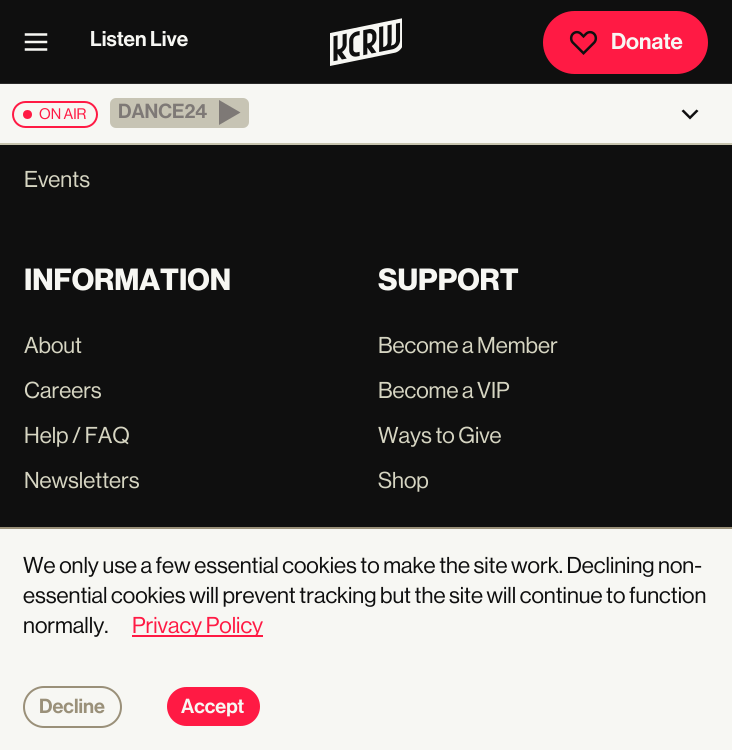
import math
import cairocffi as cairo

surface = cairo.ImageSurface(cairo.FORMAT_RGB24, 732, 750)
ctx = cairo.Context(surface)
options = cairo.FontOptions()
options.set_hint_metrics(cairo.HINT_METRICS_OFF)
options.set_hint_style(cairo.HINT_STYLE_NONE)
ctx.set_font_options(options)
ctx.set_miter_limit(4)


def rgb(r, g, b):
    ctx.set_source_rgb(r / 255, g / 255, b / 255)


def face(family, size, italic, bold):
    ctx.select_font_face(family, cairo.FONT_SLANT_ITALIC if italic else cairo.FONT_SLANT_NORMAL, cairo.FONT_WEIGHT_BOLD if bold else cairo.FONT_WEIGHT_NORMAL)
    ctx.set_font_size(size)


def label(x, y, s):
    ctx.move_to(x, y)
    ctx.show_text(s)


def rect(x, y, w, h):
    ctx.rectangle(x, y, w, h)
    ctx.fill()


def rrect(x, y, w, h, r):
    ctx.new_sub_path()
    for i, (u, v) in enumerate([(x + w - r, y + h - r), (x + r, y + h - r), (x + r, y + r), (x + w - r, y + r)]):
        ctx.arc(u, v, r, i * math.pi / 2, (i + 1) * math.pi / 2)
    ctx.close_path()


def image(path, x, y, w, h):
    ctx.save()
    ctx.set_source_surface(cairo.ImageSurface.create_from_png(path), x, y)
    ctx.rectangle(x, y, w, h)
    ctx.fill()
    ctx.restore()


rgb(15, 15, 15)
ctx.paint()
ctx.set_source_rgba(0.969, 0.969, 0.953, 0.12)
rect(0, 83, 732, 1)
image('image0.png', 24, 33, 24, 18)
face('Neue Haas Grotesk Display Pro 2 Medium', 21, 0, 0)
rgb(247, 247, 243)
label(90, 46, 'Listen Live')
image('image1.png', 330, 18, 72, 48)
rgb(255, 26, 68)
rrect(544, 12, 163, 61, 30.5)
ctx.fill_preserve()
ctx.stroke()
image('image2.png', 569, 30, 29, 25)
face('Neue Haas Grotesk Display Pro 2 Medium', 22.5, 0, 0)
rgb(247, 247, 243)
label(611, 49, 'Donate')
rect(0, 84, 732, 59)
rgb(199, 196, 174)
rect(0, 143, 732, 2)
rrect(13, 102, 84, 25, 12.5)
rgb(255, 26, 68)
ctx.stroke()
ctx.arc(27.5, 114.5, 4.5, 0, 2 * math.pi)
ctx.fill()
face('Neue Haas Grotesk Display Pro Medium', 15, 0, 0)
label(39, 119, 'ON AIR')
rgb(199, 196, 180)
rrect(110, 98, 139, 30, 6)
ctx.fill()
face('Neue Haas Grotesk Display Pro 2 Medium', 20, 0, 0)
rgb(126, 121, 118)
label(118, 118, 'DANCE24')
ctx.new_path()
ctx.move_to(219, 100)
ctx.line_to(219, 125)
ctx.line_to(240.5, 112.5)
ctx.close_path()
ctx.fill()
rgb(16, 15, 15)
ctx.set_fill_rule(cairo.FILL_RULE_EVEN_ODD)
ctx.new_path()
ctx.move_to(681.5, 111)
ctx.line_to(683.5, 109.5)
ctx.line_to(690, 116)
ctx.line_to(696.5, 109.5)
ctx.line_to(698.5, 111)
ctx.line_to(690, 119.5)
ctx.close_path()
ctx.fill()
face('Neue Haas Grotesk Display Pro Medium', 22.5, 0, 0)
rgb(214, 213, 194)
label(24, 187, 'Events')
face('Neue Haas Grotesk Display Pro', 30, 0, 1)
rgb(247, 247, 243)
label(24, 290, 'INFORMATION')
face('Neue Haas Grotesk Display Pro Medium', 22.5, 0, 0)
rgb(214, 213, 194)
label(24, 353, 'About')
label(24, 398, 'Careers')
label(24, 443, 'Help / FAQ')
label(24, 488, 'Newsletters')
face('Neue Haas Grotesk Display Pro', 30, 0, 1)
rgb(247, 247, 243)
label(378, 290, 'SUPPORT')
face('Neue Haas Grotesk Display Pro Medium', 22.5, 0, 0)
rgb(214, 213, 194)
label(378, 353, 'Become a Member')
label(378, 398, 'Become a VIP')
label(378, 443, 'Ways to Give')
label(378, 488, 'Shop')
rgb(247, 247, 243)
rect(0, 529, 732, 221)
rgb(154, 144, 121)
rect(0, 527, 732, 2)
rgb(15, 15, 15)
label(23, 573, 'We only use a few essential cookies to make the site work. Declining non-')
label(23, 603, 'essential cookies will prevent tracking but the site will continue to function')
label(23, 633, 'normally.')
rgb(255, 26, 68)
rect(132, 635, 131, 2)
label(132, 633, 'Privacy Policy')
rrect(24, 687, 97, 40, 20)
rgb(154, 144, 121)
ctx.stroke()
face('Neue Haas Grotesk Display Pro 2 Medium', 20, 0, 0)
label(39, 713, 'Decline')
rgb(255, 26, 68)
rrect(167, 687, 93, 39, 19.5)
ctx.fill()
rgb(247, 247, 243)
label(181, 713, 'Accept')
surface.write_to_png('render.png')
